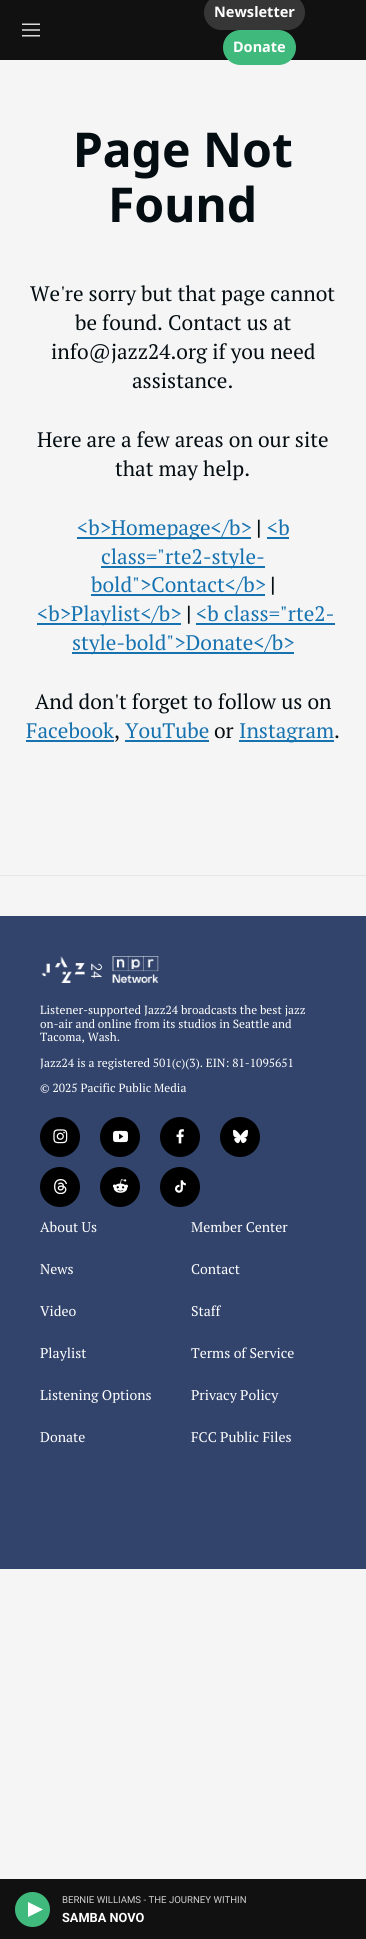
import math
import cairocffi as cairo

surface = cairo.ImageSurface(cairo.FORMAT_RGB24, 366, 1939)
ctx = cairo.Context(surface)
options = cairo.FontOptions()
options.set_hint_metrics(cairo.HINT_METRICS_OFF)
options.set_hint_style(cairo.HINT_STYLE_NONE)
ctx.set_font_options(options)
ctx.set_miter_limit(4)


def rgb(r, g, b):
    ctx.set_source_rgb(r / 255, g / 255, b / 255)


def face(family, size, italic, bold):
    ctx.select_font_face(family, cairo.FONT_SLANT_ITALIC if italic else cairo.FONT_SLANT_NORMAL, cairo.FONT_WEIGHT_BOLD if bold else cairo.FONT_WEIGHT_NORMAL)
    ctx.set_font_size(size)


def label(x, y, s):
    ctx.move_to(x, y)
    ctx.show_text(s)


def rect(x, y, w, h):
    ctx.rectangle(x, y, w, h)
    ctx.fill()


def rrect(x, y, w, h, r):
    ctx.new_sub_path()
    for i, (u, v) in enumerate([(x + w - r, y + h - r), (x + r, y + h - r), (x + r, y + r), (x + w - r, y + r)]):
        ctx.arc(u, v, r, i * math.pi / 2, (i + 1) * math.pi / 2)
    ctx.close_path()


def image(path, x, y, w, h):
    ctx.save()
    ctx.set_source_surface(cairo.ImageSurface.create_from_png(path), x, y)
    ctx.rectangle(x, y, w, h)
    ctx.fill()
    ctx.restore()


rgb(245, 245, 245)
ctx.paint()
rgb(17, 17, 17)
rect(0, 0, 366, 60)
image('image0.png', 22, 23, 18, 14)
rgb(54, 54, 54)
rrect(204, -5, 101, 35, 17.5)
ctx.fill()
face('Noto Sans', 14.5, 0, 1)
rgb(255, 255, 255)
label(214, 17, 'Newsletter')
rgb(64, 185, 124)
rrect(223, 30, 73, 35, 17.5)
ctx.fill()
rgb(255, 255, 255)
label(233, 52, 'Donate')
rgb(17, 17, 17)
rect(0, 1879, 366, 60)
rgb(64, 185, 124)
ctx.new_path()
ctx.arc(32.5, 1909.5, 17.5, 0, 2 * math.pi)
ctx.fill()
rgb(255, 255, 255)
ctx.new_path()
ctx.move_to(28, 1902)
ctx.line_to(43, 1909.5)
ctx.line_to(28, 1917)
ctx.close_path()
ctx.fill()
face('Roboto', 9.6, 0, 0)
rgb(207, 207, 207)
label(62, 1903, 'BERNIE WILLIAMS - THE JOURNEY WITHIN')
face('Roboto', 12.75, 0, 1)
rgb(255, 255, 255)
label(62, 1922, 'SAMBA NOVO')
face('Noto Sans', 48, 0, 1)
rgb(4, 13, 18)
label(73, 167, 'Page Not')
label(108, 222, 'Found')
face('PT Serif', 21, 0, 0)
label(30, 301, 'We\'re sorry but that page cannot')
label(75, 330, 'be found. Contact us at')
label(51, 359, 'info@jazz24.org if you need')
label(132, 388, 'assistance.')
label(37, 447, 'Here are a few areas on our site')
label(115, 476, 'that may help.')
rgb(23, 114, 176)
rect(77, 537, 174, 2)
label(77, 535, '<b>Homepage</b>')
face('PT Serif', 21, 0, 1)
rgb(4, 13, 18)
label(256, 535, '|')
face('PT Serif', 21, 0, 0)
rgb(23, 114, 176)
label(267, 535, '<b')
rect(267, 537, 22, 2)
rect(101, 566, 164, 2)
label(101, 564, 'class="rte2-style-')
rect(91, 594, 174, 2)
label(91, 592, 'bold">Contact</b>')
face('PT Serif', 21, 0, 1)
rgb(4, 13, 18)
label(270, 592, '|')
rgb(23, 114, 176)
rect(37, 623, 144, 2)
face('PT Serif', 21, 0, 0)
label(37, 621, '<b>Playlist</b>')
face('PT Serif', 21, 0, 1)
rgb(4, 13, 18)
label(186, 621, '|')
face('PT Serif', 21, 0, 0)
rgb(23, 114, 176)
label(196, 621, '<b class="rte2-')
rect(196, 623, 139, 2)
rect(72, 652, 222, 2)
label(72, 650, 'style-bold">Donate</b>')
rgb(4, 13, 18)
label(35, 709, 'And don\'t forget to follow us on')
rgb(23, 114, 176)
label(26, 738, 'Facebook')
rect(26, 740, 88, 2)
rgb(4, 13, 18)
label(114, 738, ',')
rgb(23, 114, 176)
label(125, 738, 'YouTube')
rect(125, 740, 84, 2)
rgb(4, 13, 18)
label(214, 738, 'or')
rgb(23, 114, 176)
rect(239, 740, 95, 2)
label(239, 738, 'Instagram')
rgb(4, 13, 18)
label(334, 738, '.')
rgb(230, 230, 230)
rect(0, 875, 366, 1)
rgb(50, 68, 108)
rect(0, 916, 366, 653)
image('image1.png', 41, 956, 118, 27)
face('PT Serif', 11.8, 0, 0)
rgb(255, 255, 255)
label(40, 1014, 'Listener-supported Jazz24 broadcasts the best jazz')
label(40, 1028, 'on-air and online from its studios in Seattle and')
label(40, 1041, 'Tacoma, Wash.')
label(40, 1067, 'Jazz24 is a registered 501(c)(3). EIN: 81-1095651')
label(40, 1092, '© 2025 Pacific Public Media')
rgb(0, 0, 0)
ctx.new_path()
ctx.arc(60, 1137, 20, 0, 2 * math.pi)
ctx.fill()
image('image2.png', 53, 1129, 15, 15)
ctx.arc(120, 1137, 20, 0, 2 * math.pi)
ctx.fill()
image('image3.png', 113, 1130, 15, 13)
ctx.arc(180, 1137, 20, 0, 2 * math.pi)
ctx.fill()
image('image4.png', 176, 1129, 8, 15)
ctx.arc(240, 1137, 20, 0, 2 * math.pi)
ctx.fill()
image('image5.png', 233, 1129, 15, 15)
ctx.arc(60, 1187, 20, 0, 2 * math.pi)
ctx.fill()
image('image6.png', 54, 1179, 13, 15)
ctx.arc(120, 1187, 20, 0, 2 * math.pi)
ctx.fill()
image('image7.png', 113, 1179, 15, 14)
ctx.arc(180, 1187, 20, 0, 2 * math.pi)
ctx.fill()
image('image8.png', 175, 1180, 11, 13)
face('PT Serif', 14, 0, 0)
rgb(255, 255, 255)
label(40, 1232, 'About Us')
label(191, 1232, 'Member Center')
label(40, 1274, 'News')
label(191, 1274, 'Contact')
label(40, 1316, 'Video')
label(191, 1316, 'Staff')
label(40, 1358, 'Playlist')
label(191, 1358, 'Terms of Service')
label(40, 1400, 'Listening Options')
label(191, 1400, 'Privacy Policy')
label(40, 1442, 'Donate')
label(191, 1442, 'FCC Public Files')
surface.write_to_png('render.png')
